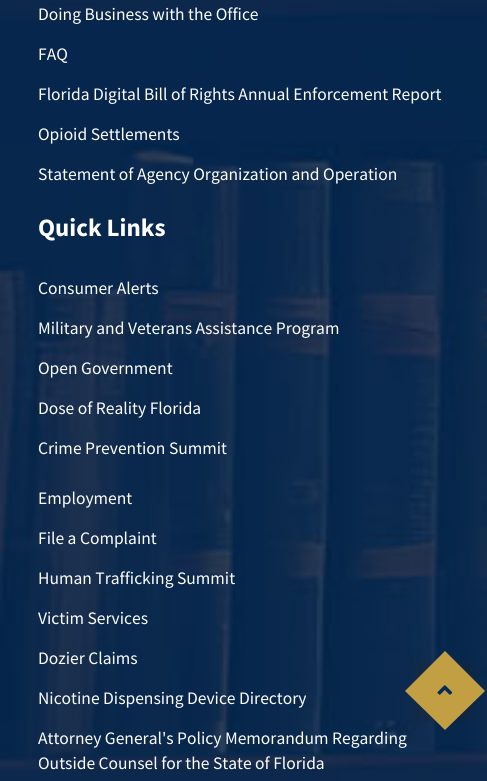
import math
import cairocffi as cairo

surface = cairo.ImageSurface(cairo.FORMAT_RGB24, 487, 781)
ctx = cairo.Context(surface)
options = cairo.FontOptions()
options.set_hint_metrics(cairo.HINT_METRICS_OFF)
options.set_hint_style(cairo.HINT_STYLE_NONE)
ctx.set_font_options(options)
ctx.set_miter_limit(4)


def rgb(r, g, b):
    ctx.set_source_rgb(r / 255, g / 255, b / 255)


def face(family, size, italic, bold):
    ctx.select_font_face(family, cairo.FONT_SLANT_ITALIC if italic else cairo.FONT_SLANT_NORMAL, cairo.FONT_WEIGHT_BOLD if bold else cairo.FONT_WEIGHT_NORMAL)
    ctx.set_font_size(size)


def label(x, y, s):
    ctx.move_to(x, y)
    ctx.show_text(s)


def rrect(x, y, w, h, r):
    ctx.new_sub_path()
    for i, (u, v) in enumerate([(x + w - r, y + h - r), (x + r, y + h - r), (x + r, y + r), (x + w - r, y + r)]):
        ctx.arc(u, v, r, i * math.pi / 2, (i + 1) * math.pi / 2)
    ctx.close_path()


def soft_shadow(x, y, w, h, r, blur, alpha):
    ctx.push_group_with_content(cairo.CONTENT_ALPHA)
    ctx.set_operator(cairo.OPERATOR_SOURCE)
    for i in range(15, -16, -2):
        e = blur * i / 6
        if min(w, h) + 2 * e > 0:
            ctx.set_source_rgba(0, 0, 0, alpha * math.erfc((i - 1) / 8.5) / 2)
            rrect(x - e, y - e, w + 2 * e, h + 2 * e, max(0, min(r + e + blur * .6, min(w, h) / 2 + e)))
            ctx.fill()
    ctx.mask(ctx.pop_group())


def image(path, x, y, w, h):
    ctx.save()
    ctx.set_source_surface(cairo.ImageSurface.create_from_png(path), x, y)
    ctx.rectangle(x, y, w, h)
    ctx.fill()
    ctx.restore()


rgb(255, 255, 255)
ctx.paint()
image('image0.png', 0, 0, 487, 781)
face('Source Sans Pro', 17.5, 0, 0)
rgb(255, 255, 255)
label(38, 20, 'Doing Business with the Office')
label(38, 60, 'FAQ')
label(38, 100, 'Florida Digital Bill of Rights Annual Enforcement Report')
label(38, 140, 'Opioid Settlements')
label(38, 180, 'Statement of Agency Organization and Operation')
face('Source Sans Pro', 25, 0, 1)
label(38, 236, 'Quick Links')
face('Source Sans Pro', 17.5, 0, 0)
label(38, 294, 'Consumer Alerts')
label(38, 334, 'Military and Veterans Assistance Program')
label(38, 374, 'Open Government')
label(38, 414, 'Dose of Reality Florida')
label(38, 454, 'Crime Prevention Summit')
label(38, 504, 'Employment')
label(38, 544, 'File a Complaint')
label(38, 584, 'Human Trafficking Summit')
label(38, 624, 'Victim Services')
label(38, 664, 'Dozier Claims')
label(38, 704, 'Nicotine Dispensing Device Directory')
label(38, 744, 'Attorney General\'s Policy Memorandum Regarding')
label(38, 769, 'Outside Counsel for the State of Florida')
rgb(32, 33, 36)
soft_shadow(416, 664, 57, 56, 0, 4, 0.28)
rgb(195, 159, 68)
ctx.new_path()
ctx.move_to(445, 651)
ctx.line_to(485, 691)
ctx.line_to(445, 730)
ctx.line_to(405, 691)
ctx.close_path()
ctx.fill()
image('image1.png', 437, 685, 16, 10)
surface.write_to_png('render.png')
